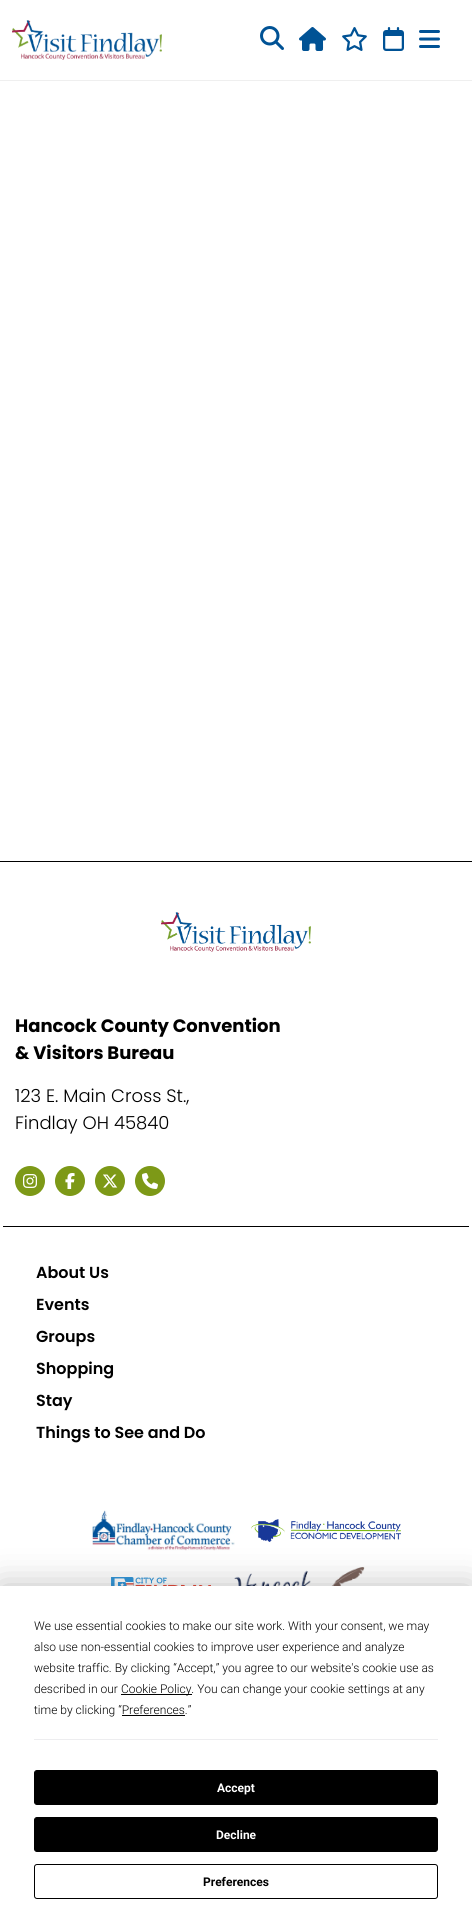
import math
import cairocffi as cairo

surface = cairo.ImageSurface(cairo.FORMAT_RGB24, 472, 1929)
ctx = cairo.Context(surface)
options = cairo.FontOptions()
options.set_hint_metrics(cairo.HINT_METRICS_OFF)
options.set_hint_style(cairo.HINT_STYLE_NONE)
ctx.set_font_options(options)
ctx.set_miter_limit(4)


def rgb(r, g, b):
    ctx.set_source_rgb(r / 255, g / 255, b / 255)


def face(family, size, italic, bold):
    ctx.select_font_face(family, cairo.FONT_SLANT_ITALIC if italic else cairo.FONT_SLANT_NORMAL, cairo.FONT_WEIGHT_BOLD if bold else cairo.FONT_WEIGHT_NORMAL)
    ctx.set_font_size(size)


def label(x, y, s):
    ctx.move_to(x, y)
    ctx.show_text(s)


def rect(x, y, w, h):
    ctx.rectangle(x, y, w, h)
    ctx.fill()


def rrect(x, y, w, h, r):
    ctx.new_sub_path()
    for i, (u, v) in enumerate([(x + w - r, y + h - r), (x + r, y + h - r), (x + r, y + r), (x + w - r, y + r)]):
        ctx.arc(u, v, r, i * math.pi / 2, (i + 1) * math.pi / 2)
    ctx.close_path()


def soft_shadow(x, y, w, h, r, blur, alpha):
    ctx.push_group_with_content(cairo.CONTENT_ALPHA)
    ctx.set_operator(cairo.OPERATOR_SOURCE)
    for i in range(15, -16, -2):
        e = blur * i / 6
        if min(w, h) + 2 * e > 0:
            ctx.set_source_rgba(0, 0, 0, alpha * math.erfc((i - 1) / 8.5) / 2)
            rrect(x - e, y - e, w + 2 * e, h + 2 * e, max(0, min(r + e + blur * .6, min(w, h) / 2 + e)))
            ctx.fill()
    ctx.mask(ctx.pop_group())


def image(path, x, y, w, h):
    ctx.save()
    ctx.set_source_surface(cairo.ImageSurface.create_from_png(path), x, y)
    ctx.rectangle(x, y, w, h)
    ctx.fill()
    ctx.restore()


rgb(255, 255, 255)
ctx.paint()
rgb(239, 239, 239)
rect(0, 80, 472, 1)
image('image0.png', 12, 20, 150, 40)
image('image1.png', 260, 26, 24, 24)
image('image2.png', 299, 27, 27, 24)
image('image3.png', 342, 27, 25, 24)
image('image4.png', 383, 27, 21, 24)
image('image5.png', 419, 30, 21, 18)
rgb(0, 0, 0)
rect(0, 861, 472, 1)
rect(3, 1226, 466, 1)
image('image6.png', 161, 912, 150, 40)
face('Poppins', 18, 0, 1)
label(15, 1032, 'Hancock County Convention')
label(15, 1059, '& Visitors Bureau')
face('Poppins Light', 18, 0, 0)
label(15, 1102, '123 E. Main Cross St.,')
label(15, 1129, 'Findlay OH 45840')
rgb(125, 153, 23)
ctx.new_path()
ctx.arc(30, 1181, 15, 0, 2 * math.pi)
ctx.fill()
image('image7.png', 23, 1174, 14, 14)
ctx.arc(70, 1181, 15, 0, 2 * math.pi)
ctx.fill()
image('image8.png', 65, 1173, 10, 16)
ctx.arc(110, 1181, 15, 0, 2 * math.pi)
ctx.fill()
image('image9.png', 103, 1174, 15, 14)
ctx.arc(150, 1181, 15, 0, 2 * math.pi)
ctx.fill()
image('image10.png', 142, 1173, 16, 16)
face('Poppins SemiBold', 16, 0, 0)
rgb(0, 0, 0)
label(36, 1278, 'About Us')
label(36, 1310, 'Events')
label(36, 1342, 'Groups')
label(36, 1374, 'Shopping')
label(36, 1406, 'Stay')
label(36, 1438, 'Things to See and Do')
image('image11.png', 92, 1510, 143, 41)
image('image12.png', 251, 1519, 150, 23)
image('image13.png', 111, 1577, 100, 9)
image('image14.png', 234, 1567, 131, 19)
rgb(0, 0, 0)
soft_shadow(0, 1586, 472, 343, 0, 17.5, 0.25)
rgb(255, 255, 255)
rect(0, 1586, 472, 343)
face('Roboto Light', 12, 0, 0)
rgb(0, 0, 0)
label(34, 1630, 'We use essential cookies to make our site work. With your consent, we may')
label(34, 1651, 'also use non-essential cookies to improve user experience and analyze')
label(34, 1672, 'website traffic. By clicking “Accept,” you agree to our website\'s cookie use as')
label(34, 1693, 'described in our')
rect(121, 1694, 71, 1)
label(121, 1693, 'Cookie Policy. You can change your cookie settings at any')
label(34, 1714, 'time by clicking “Preferences.”')
rect(122, 1715, 63, 1)
rgb(237, 237, 239)
rect(34, 1739, 404, 1)
rgb(0, 0, 0)
rrect(34.5, 1770.5, 403, 34, 2.5)
ctx.fill_preserve()
ctx.set_line_width(1)
ctx.stroke()
face('Roboto', 12, 0, 1)
rgb(255, 255, 255)
label(217, 1792, 'Accept')
rgb(0, 0, 0)
rrect(34.5, 1817.5, 403, 34, 2.5)
ctx.fill_preserve()
ctx.stroke()
rgb(255, 255, 255)
label(216, 1839, 'Decline')
rrect(34.5, 1864.5, 403, 34, 2.5)
rgb(0, 0, 0)
ctx.stroke()
label(203, 1886, 'Preferences')
surface.write_to_png('render.png')
